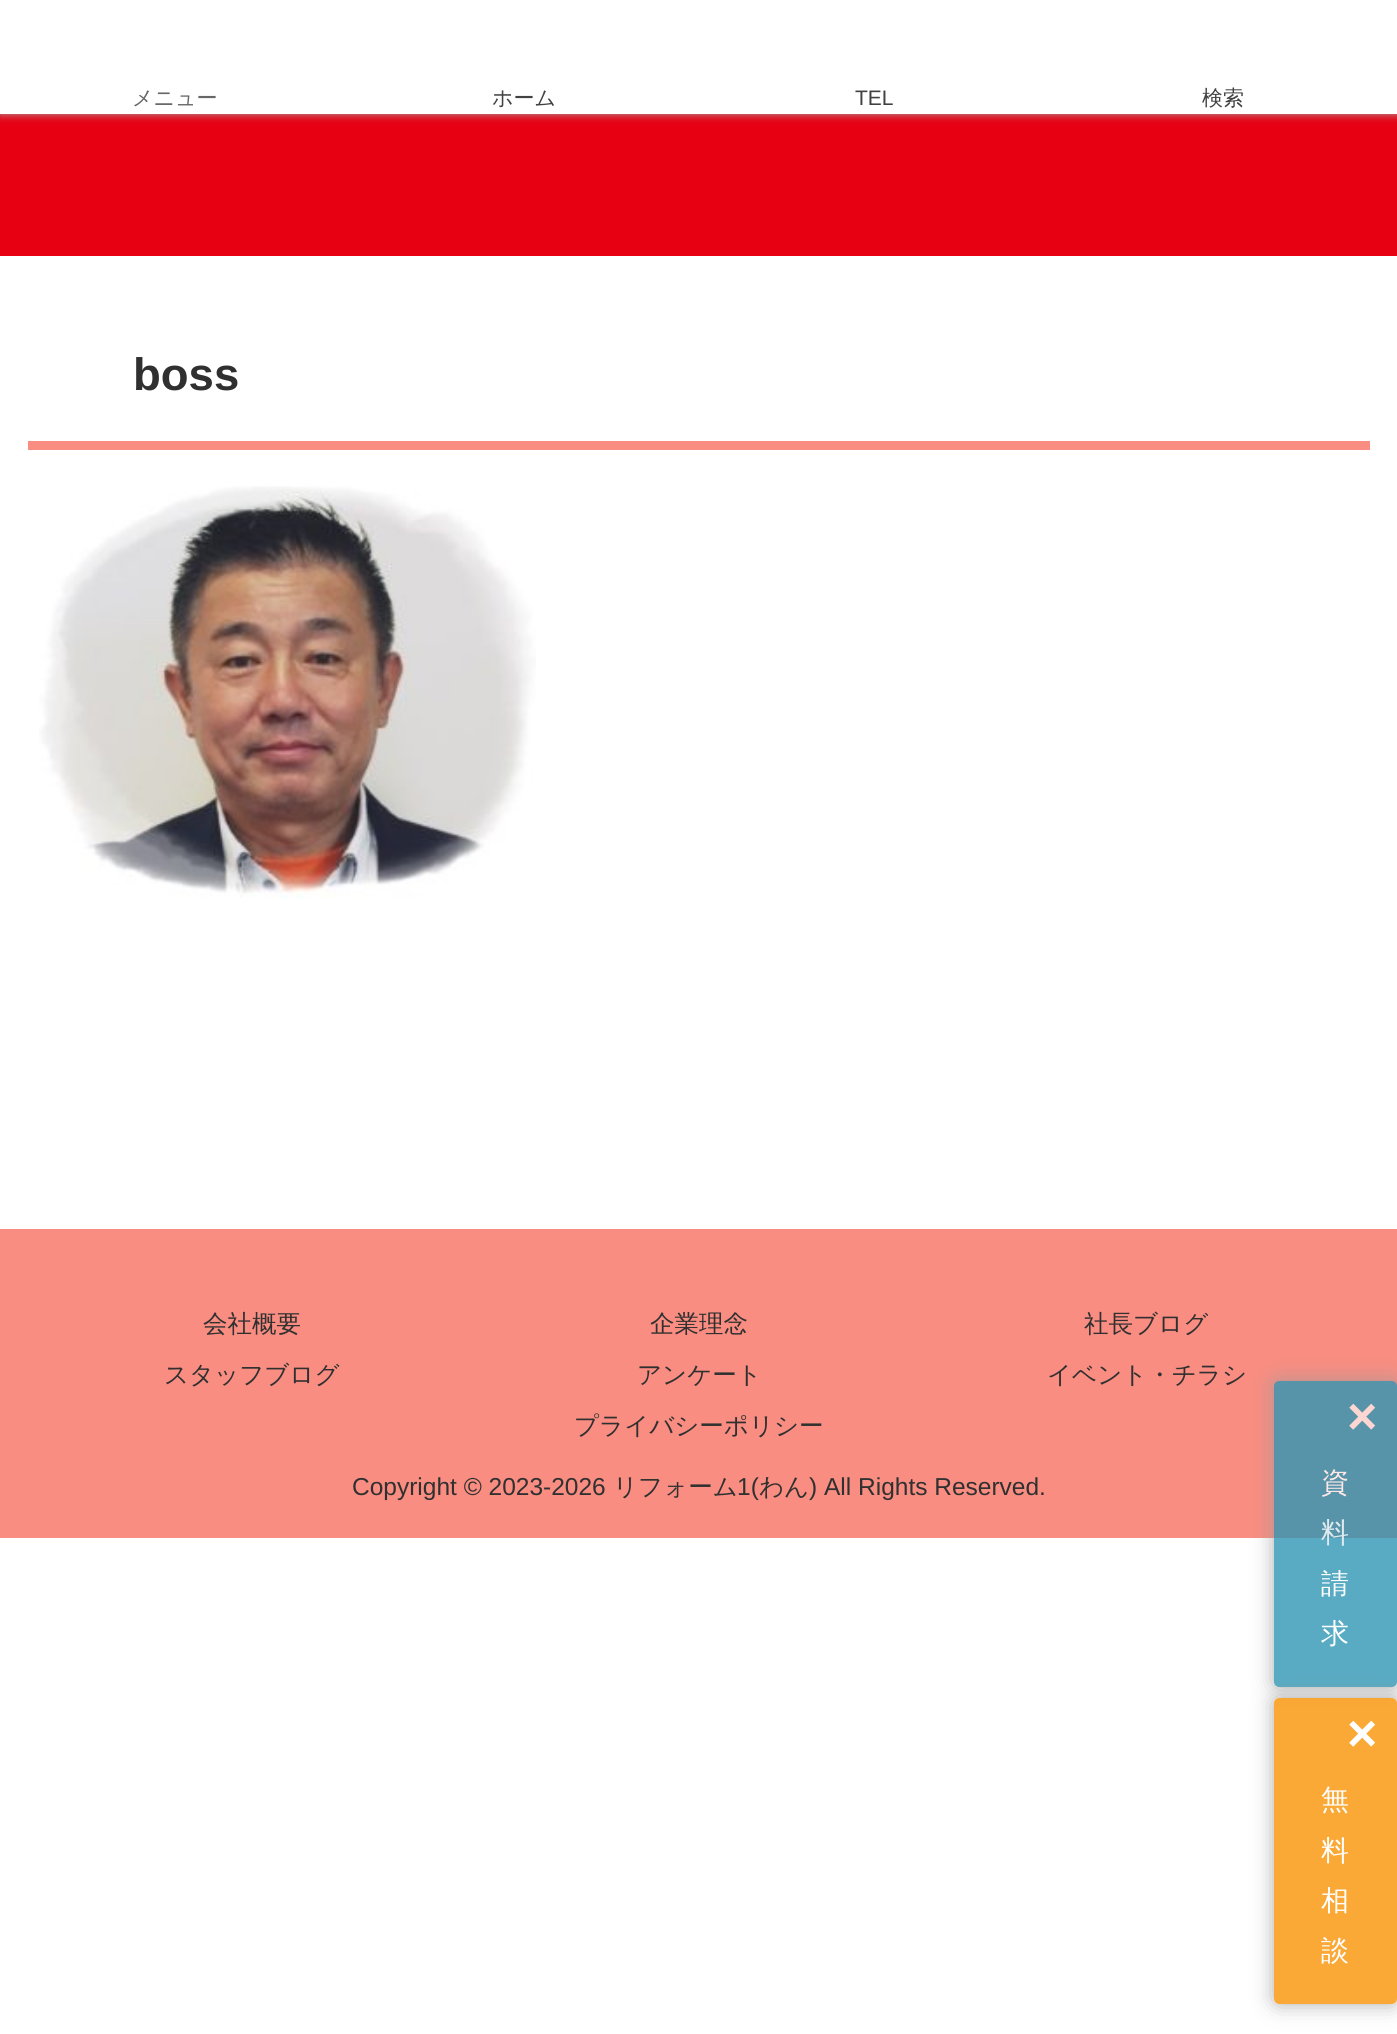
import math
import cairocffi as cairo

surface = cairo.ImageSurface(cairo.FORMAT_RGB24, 1397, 2034)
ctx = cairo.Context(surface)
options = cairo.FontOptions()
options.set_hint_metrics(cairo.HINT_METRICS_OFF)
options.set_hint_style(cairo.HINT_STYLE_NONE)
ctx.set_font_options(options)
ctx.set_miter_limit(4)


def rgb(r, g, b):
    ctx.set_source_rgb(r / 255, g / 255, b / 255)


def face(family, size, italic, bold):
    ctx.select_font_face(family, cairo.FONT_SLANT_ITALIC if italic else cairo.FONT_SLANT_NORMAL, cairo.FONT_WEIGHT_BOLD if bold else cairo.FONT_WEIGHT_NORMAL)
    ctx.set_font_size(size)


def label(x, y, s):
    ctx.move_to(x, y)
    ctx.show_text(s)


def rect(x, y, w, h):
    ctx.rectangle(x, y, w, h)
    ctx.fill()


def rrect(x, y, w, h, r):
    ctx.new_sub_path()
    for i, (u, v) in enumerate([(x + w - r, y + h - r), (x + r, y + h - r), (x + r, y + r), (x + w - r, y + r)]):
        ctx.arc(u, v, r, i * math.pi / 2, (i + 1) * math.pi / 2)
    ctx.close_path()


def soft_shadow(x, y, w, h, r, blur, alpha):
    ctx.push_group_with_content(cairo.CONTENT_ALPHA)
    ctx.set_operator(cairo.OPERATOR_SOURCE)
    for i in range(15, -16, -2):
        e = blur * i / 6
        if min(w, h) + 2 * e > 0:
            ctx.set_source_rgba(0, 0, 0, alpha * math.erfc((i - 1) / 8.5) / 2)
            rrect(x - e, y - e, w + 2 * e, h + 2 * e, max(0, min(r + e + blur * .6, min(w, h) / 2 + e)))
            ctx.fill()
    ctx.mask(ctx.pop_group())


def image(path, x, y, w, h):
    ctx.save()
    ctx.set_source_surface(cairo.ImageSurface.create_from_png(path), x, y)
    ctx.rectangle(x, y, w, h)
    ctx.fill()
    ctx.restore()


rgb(255, 255, 255)
ctx.paint()
rgb(230, 0, 18)
rect(0, 114, 1397, 142)
rgb(169, 169, 169)
soft_shadow(0, 0, 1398, 114, 0, 4.5, 1)
rgb(255, 255, 255)
rect(0, 0, 1397, 114)
face('WenQuanYi Zen Hei Medium', 21, 0, 0)
rgb(103, 103, 103)
label(132, 105, 'メニュー')
rgb(65, 65, 65)
label(492, 105, 'ホーム')
face('Liberation Sans', 21, 0, 0)
label(855, 105, 'TEL')
face('WenQuanYi Zen Hei Medium', 21, 0, 0)
label(1202, 105, '検索')
rgb(249, 141, 129)
rect(28, 441, 1342, 9)
face('Liberation Sans', 45.5, 0, 1)
rgb(48, 48, 48)
label(133, 390, 'boss')
image('image0.png', 39, 486, 497, 412)
rgb(249, 141, 129)
rect(0, 1229, 1397, 309)
face('WenQuanYi Zen Hei Medium', 24.5, 0, 0)
rgb(48, 48, 48)
label(203, 1332, '会社概要')
label(650, 1332, '企業理念')
label(1084, 1332, '社長ブログ')
label(164, 1383, 'スタッフブログ')
label(637, 1383, 'アンケート')
label(1047, 1383, 'イベント・チラシ')
label(574, 1434, 'プライバシーポリシー')
face('Liberation Sans', 24.5, 0, 0)
label(352, 1495, 'Copyright © 2023-2026')
face('WenQuanYi Zen Hei Medium', 24.5, 0, 0)
label(613, 1495, 'リフォーム')
face('Liberation Sans', 24.5, 0, 0)
label(737, 1495, '1(')
face('WenQuanYi Zen Hei Medium', 24.5, 0, 0)
label(759, 1495, 'わん')
face('Liberation Sans', 24.5, 0, 0)
label(809, 1495, ') All Rights Reserved.')
ctx.save()
ctx.set_fill_rule(cairo.FILL_RULE_EVEN_ODD)
ctx.new_path()
ctx.move_to(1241, 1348)
ctx.line_to(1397, 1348)
ctx.line_to(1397, 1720)
ctx.line_to(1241, 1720)
ctx.close_path()
ctx.move_to(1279, 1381)
ctx.line_to(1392, 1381)
ctx.curve_to(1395, 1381, 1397, 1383, 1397, 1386)
ctx.line_to(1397, 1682)
ctx.curve_to(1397, 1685, 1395, 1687, 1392, 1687)
ctx.line_to(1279, 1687)
ctx.curve_to(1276, 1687, 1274, 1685, 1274, 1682)
ctx.line_to(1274, 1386)
ctx.curve_to(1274, 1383, 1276, 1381, 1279, 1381)
ctx.close_path()
ctx.clip()
rgb(153, 153, 153)
soft_shadow(1274, 1381, 123, 306, 5, 10.5, 0.8)
ctx.restore()
ctx.set_source_rgba(0.184, 0.588, 0.706, 0.8)
rrect(1274, 1381, 123, 306, 5)
ctx.fill()
face('Liberation Sans', 52, 0, 1)
rgb(253, 214, 210)
label(1347, 1434, '×')
face('WenQuanYi Zen Hei Medium', 28, 0, 0)
rgb(254, 232, 230)
label(1321, 1492, '資')
rgb(222, 234, 239)
label(1321, 1542, '料')
rgb(255, 255, 255)
label(1321, 1593, '請')
label(1321, 1643, '求')
ctx.save()
ctx.set_fill_rule(cairo.FILL_RULE_EVEN_ODD)
ctx.new_path()
ctx.move_to(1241, 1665)
ctx.line_to(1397, 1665)
ctx.line_to(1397, 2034)
ctx.line_to(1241, 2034)
ctx.close_path()
ctx.move_to(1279, 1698)
ctx.line_to(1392, 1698)
ctx.curve_to(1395, 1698, 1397, 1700, 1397, 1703)
ctx.line_to(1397, 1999)
ctx.curve_to(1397, 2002, 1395, 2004, 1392, 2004)
ctx.line_to(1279, 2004)
ctx.curve_to(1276, 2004, 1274, 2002, 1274, 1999)
ctx.line_to(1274, 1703)
ctx.curve_to(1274, 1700, 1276, 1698, 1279, 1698)
ctx.close_path()
ctx.clip()
rgb(153, 153, 153)
soft_shadow(1274, 1698, 123, 306, 5, 10.5, 0.8)
ctx.restore()
ctx.set_source_rgba(0.973, 0.58, 0.024, 0.8)
rrect(1274, 1698, 123, 306, 5)
ctx.fill()
face('Liberation Sans', 52, 0, 1)
rgb(255, 255, 255)
label(1347, 1751, '×')
face('WenQuanYi Zen Hei Medium', 28, 0, 0)
label(1321, 1809, '無')
label(1321, 1860, '料')
label(1321, 1910, '相')
label(1321, 1960, '談')
surface.write_to_png('render.png')
